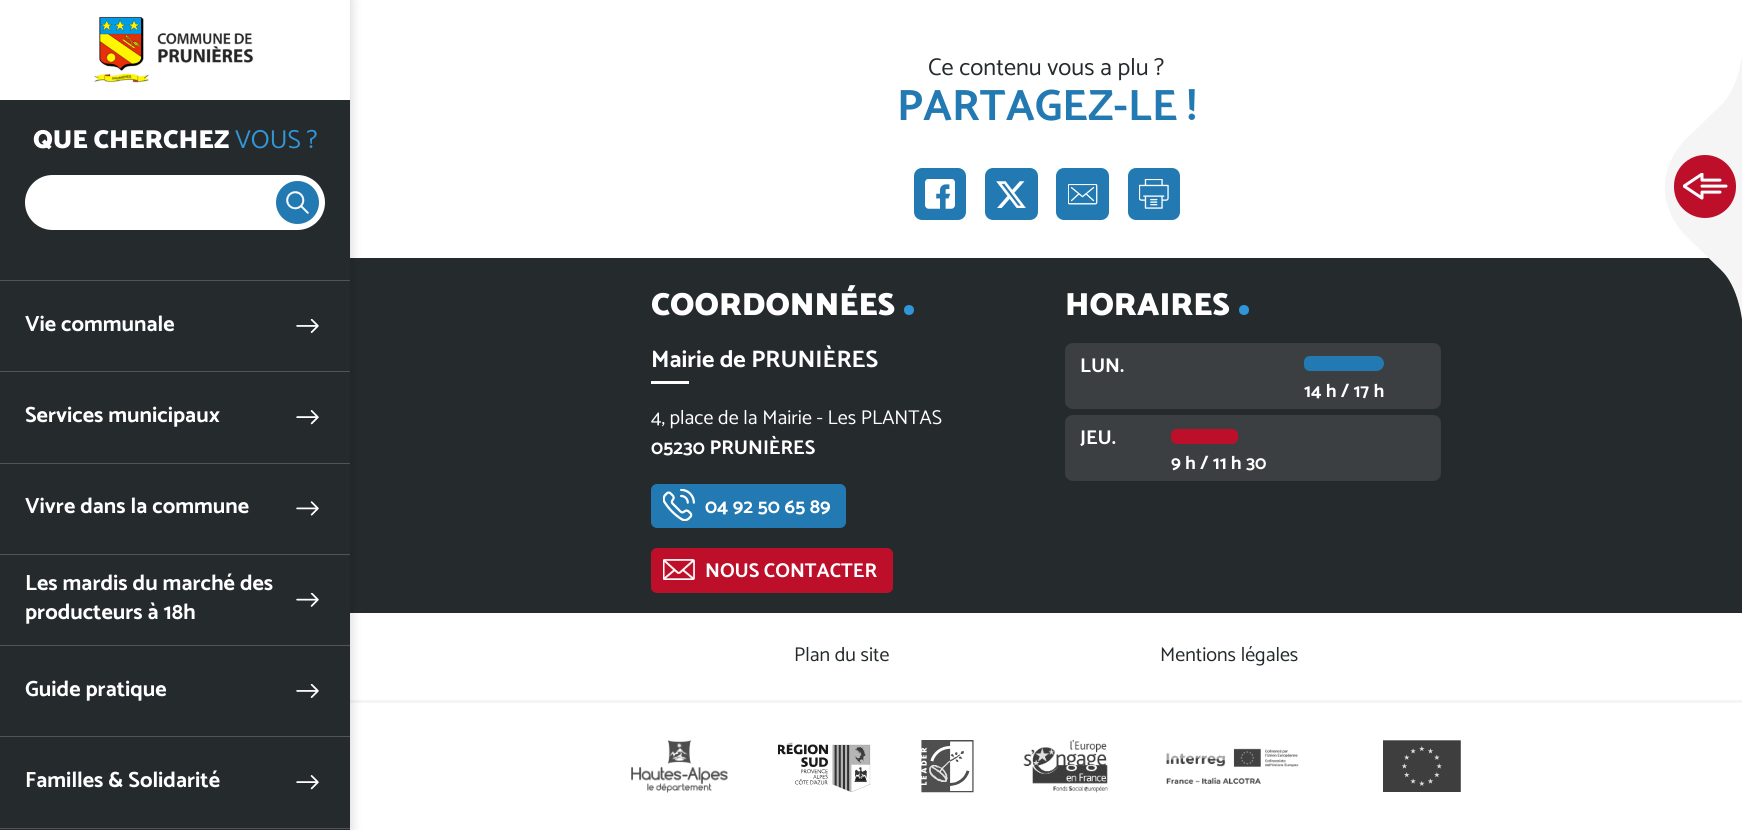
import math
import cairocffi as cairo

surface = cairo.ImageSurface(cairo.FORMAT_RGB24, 1742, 830)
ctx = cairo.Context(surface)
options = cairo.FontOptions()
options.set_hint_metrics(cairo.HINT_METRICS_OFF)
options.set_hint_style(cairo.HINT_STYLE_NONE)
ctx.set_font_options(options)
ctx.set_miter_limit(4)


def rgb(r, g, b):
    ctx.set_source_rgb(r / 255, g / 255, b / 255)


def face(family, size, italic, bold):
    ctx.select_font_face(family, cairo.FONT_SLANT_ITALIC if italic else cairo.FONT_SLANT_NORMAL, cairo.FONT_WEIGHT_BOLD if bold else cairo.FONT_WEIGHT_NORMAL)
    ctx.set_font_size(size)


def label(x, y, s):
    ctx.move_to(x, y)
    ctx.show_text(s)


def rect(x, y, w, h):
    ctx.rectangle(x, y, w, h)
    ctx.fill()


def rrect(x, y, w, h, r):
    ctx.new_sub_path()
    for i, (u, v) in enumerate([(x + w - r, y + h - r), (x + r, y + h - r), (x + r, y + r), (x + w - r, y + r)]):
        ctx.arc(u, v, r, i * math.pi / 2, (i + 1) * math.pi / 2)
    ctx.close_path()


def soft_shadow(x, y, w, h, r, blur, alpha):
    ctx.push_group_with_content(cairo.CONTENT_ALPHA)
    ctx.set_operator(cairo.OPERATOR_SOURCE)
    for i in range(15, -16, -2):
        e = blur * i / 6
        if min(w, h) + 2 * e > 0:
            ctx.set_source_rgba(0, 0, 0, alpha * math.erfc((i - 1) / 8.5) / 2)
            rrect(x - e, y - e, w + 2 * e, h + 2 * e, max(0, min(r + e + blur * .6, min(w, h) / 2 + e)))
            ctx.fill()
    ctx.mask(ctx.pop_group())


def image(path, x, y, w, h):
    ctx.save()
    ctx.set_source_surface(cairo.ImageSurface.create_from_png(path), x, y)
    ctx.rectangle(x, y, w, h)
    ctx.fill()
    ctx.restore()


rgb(255, 255, 255)
ctx.paint()
face('Catamaran', 24.25, 0, 0)
rgb(37, 42, 45)
label(928, 75, 'Ce contenu vous a plu ?')
face('Catamaran', 44, 0, 1)
rgb(35, 122, 178)
label(897, 120, 'PARTAGEZ-LE !')
rrect(914, 168, 52, 52, 8)
ctx.fill()
image('image0.png', 925, 179, 30, 30)
rrect(985, 168, 53, 52, 8)
ctx.fill()
image('image1.png', 996, 181, 30, 27)
rrect(1056, 168, 53, 52, 8)
ctx.fill()
image('image2.png', 1068, 184, 30, 21)
rrect(1128, 168, 52, 52, 8)
ctx.fill()
image('image3.png', 1139, 179, 30, 30)
rgb(37, 42, 45)
rect(350, 258, 1392, 355)
rgb(245, 245, 245)
rect(350, 700, 1392, 3)
rgb(0, 0, 0)
soft_shadow(0, 0, 350, 830, 0, 6, 0.2)
rgb(255, 255, 255)
rect(0, 0, 350, 100)
image('image4.png', 94, 16, 160, 67)
rgb(37, 42, 45)
rect(0, 100, 350, 730)
rgb(81, 85, 87)
rect(0, 280, 350, 1)
face('Catamaran Black', 26, 0, 0)
rgb(255, 255, 255)
label(33, 148, 'QUE CHERCHEZ')
face('Catamaran', 26, 0, 0)
rgb(49, 150, 215)
label(235, 148, 'VOUS ?')
rgb(255, 255, 255)
rrect(25, 175, 300, 55, 27.5)
ctx.fill()
rgb(35, 122, 178)
ctx.arc(297.5, 202.5, 21.5, 0, 2 * math.pi)
ctx.fill()
image('image5.png', 286, 191, 23, 23)
rgb(81, 85, 87)
rect(0, 371, 350, 1)
face('Catamaran', 22, 0, 1)
rgb(255, 255, 255)
label(25, 331, 'Vie communale')
image('image6.png', 296, 319, 23, 14)
rgb(81, 85, 87)
rect(0, 463, 350, 1)
rgb(255, 255, 255)
label(25, 422, 'Services municipaux')
image('image7.png', 296, 410, 23, 15)
rgb(81, 85, 87)
rect(0, 554, 350, 1)
rgb(255, 255, 255)
label(25, 513, 'Vivre dans la commune')
image('image8.png', 296, 501, 23, 15)
rgb(81, 85, 87)
rect(0, 645, 350, 1)
rgb(255, 255, 255)
label(25, 590, 'Les mardis du marché des')
image('image9.png', 296, 593, 23, 14)
label(25, 619, 'producteurs à 18h')
rgb(81, 85, 87)
rect(0, 736, 350, 1)
rgb(255, 255, 255)
label(25, 696, 'Guide pratique')
image('image6.png', 296, 684, 23, 14)
rgb(81, 85, 87)
rect(0, 828, 350, 1)
rgb(255, 255, 255)
label(25, 787, 'Familles & Solidarité')
image('image7.png', 296, 775, 23, 15)
face('Catamaran Black', 32, 0, 0)
label(651, 315, 'COORDONNÉES')
rgb(49, 150, 215)
ctx.new_path()
ctx.arc(909, 310, 5, 0, 2 * math.pi)
ctx.fill()
face('Catamaran', 24, 0, 1)
rgb(255, 255, 255)
label(651, 367, 'Mairie de PRUNIÈRES')
rect(651, 381, 38, 3)
face('Catamaran', 20, 0, 0)
label(651, 424, '4, place de la Mairie - Les PLANTAS')
face('Catamaran', 20, 0, 1)
label(651, 454, '05230 PRUNIÈRES')
rgb(35, 122, 178)
rrect(651, 484, 195, 44, 6)
ctx.fill()
image('image10.png', 663, 489, 32, 32)
rgb(255, 255, 255)
label(705, 513, '04 92 50 65 89')
rgb(189, 15, 41)
rrect(651, 548, 242, 45, 6)
ctx.fill()
image('image11.png', 663, 559, 32, 21)
rgb(255, 255, 255)
label(705, 577, 'NOUS CONTACTER')
face('Catamaran Black', 32, 0, 0)
label(1065, 315, 'HORAIRES')
rgb(49, 150, 215)
ctx.new_path()
ctx.arc(1244, 310, 5, 0, 2 * math.pi)
ctx.fill()
rgb(59, 63, 66)
rrect(1065, 343, 376, 66, 8)
ctx.fill()
face('Catamaran', 20, 0, 1)
rgb(255, 255, 255)
label(1080, 372, 'LUN.')
rgb(35, 122, 178)
rect(1310, 356, 66, 15)
ctx.new_path()
ctx.move_to(1376, 356)
ctx.line_to(1376.5, 356)
ctx.curve_to(1380.5, 356, 1384, 359.5, 1384, 363.5)
ctx.curve_to(1384, 367.5, 1380.5, 371, 1376.5, 371)
ctx.line_to(1376, 371)
ctx.close_path()
ctx.fill()
ctx.new_path()
ctx.move_to(1310, 356)
ctx.line_to(1310, 371)
ctx.curve_to(1306.5, 371, 1304, 368.5, 1304, 365)
ctx.line_to(1304, 362)
ctx.curve_to(1304, 358.5, 1306.5, 356, 1310, 356)
ctx.close_path()
ctx.fill()
face('Catamaran', 18.75, 0, 1)
rgb(255, 255, 255)
label(1304, 397, '14 h / 17 h')
rgb(59, 63, 66)
rrect(1065, 415, 376, 66, 8)
ctx.fill()
face('Catamaran', 20, 0, 1)
rgb(255, 255, 255)
label(1080, 444, 'JEU.')
rgb(189, 15, 41)
rect(1178, 429, 53, 15)
ctx.new_path()
ctx.move_to(1231, 429)
ctx.line_to(1232, 429)
ctx.curve_to(1235.5, 429, 1238, 431.5, 1238, 435)
ctx.line_to(1238, 438)
ctx.curve_to(1238, 441.5, 1235.5, 444, 1232, 444)
ctx.line_to(1231, 444)
ctx.close_path()
ctx.fill()
ctx.new_path()
ctx.move_to(1177, 429)
ctx.line_to(1178, 429)
ctx.line_to(1178, 444)
ctx.line_to(1177, 444)
ctx.curve_to(1173.5, 444, 1171, 441.5, 1171, 438)
ctx.line_to(1171, 435)
ctx.curve_to(1171, 431.5, 1173.5, 429, 1177, 429)
ctx.close_path()
ctx.fill()
face('Catamaran', 18.75, 0, 1)
rgb(255, 255, 255)
label(1171, 469, '9 h / 11 h 30')
face('Catamaran', 20, 0, 0)
rgb(37, 42, 45)
label(794, 661, 'Plan du site')
label(1160, 661, 'Mentions légales')
image('image12.png', 631, 740, 97, 53)
image('image13.png', 778, 742, 93, 50)
image('image14.png', 921, 740, 53, 53)
image('image15.png', 1023, 740, 85, 53)
image('image16.png', 1166, 748, 133, 36)
image('image17.png', 1383, 740, 78, 52)
rgb(245, 245, 245)
ctx.new_path()
ctx.move_to(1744, 337)
ctx.line_to(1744, 38)
ctx.curve_to(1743, 56, 1738, 89, 1721, 105)
ctx.line_to(1686, 139)
ctx.curve_to(1674, 151, 1666, 167, 1665, 183)
ctx.line_to(1665, 192)
ctx.curve_to(1666, 208, 1674, 224, 1686, 236)
ctx.line_to(1721, 270)
ctx.curve_to(1738, 286, 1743, 319, 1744, 337)
ctx.close_path()
ctx.fill()
rgb(189, 15, 41)
rrect(1674, 155, 62, 63, 31)
ctx.fill()
image('image18.png', 1683, 173, 45, 27)
surface.write_to_png('render.png')
